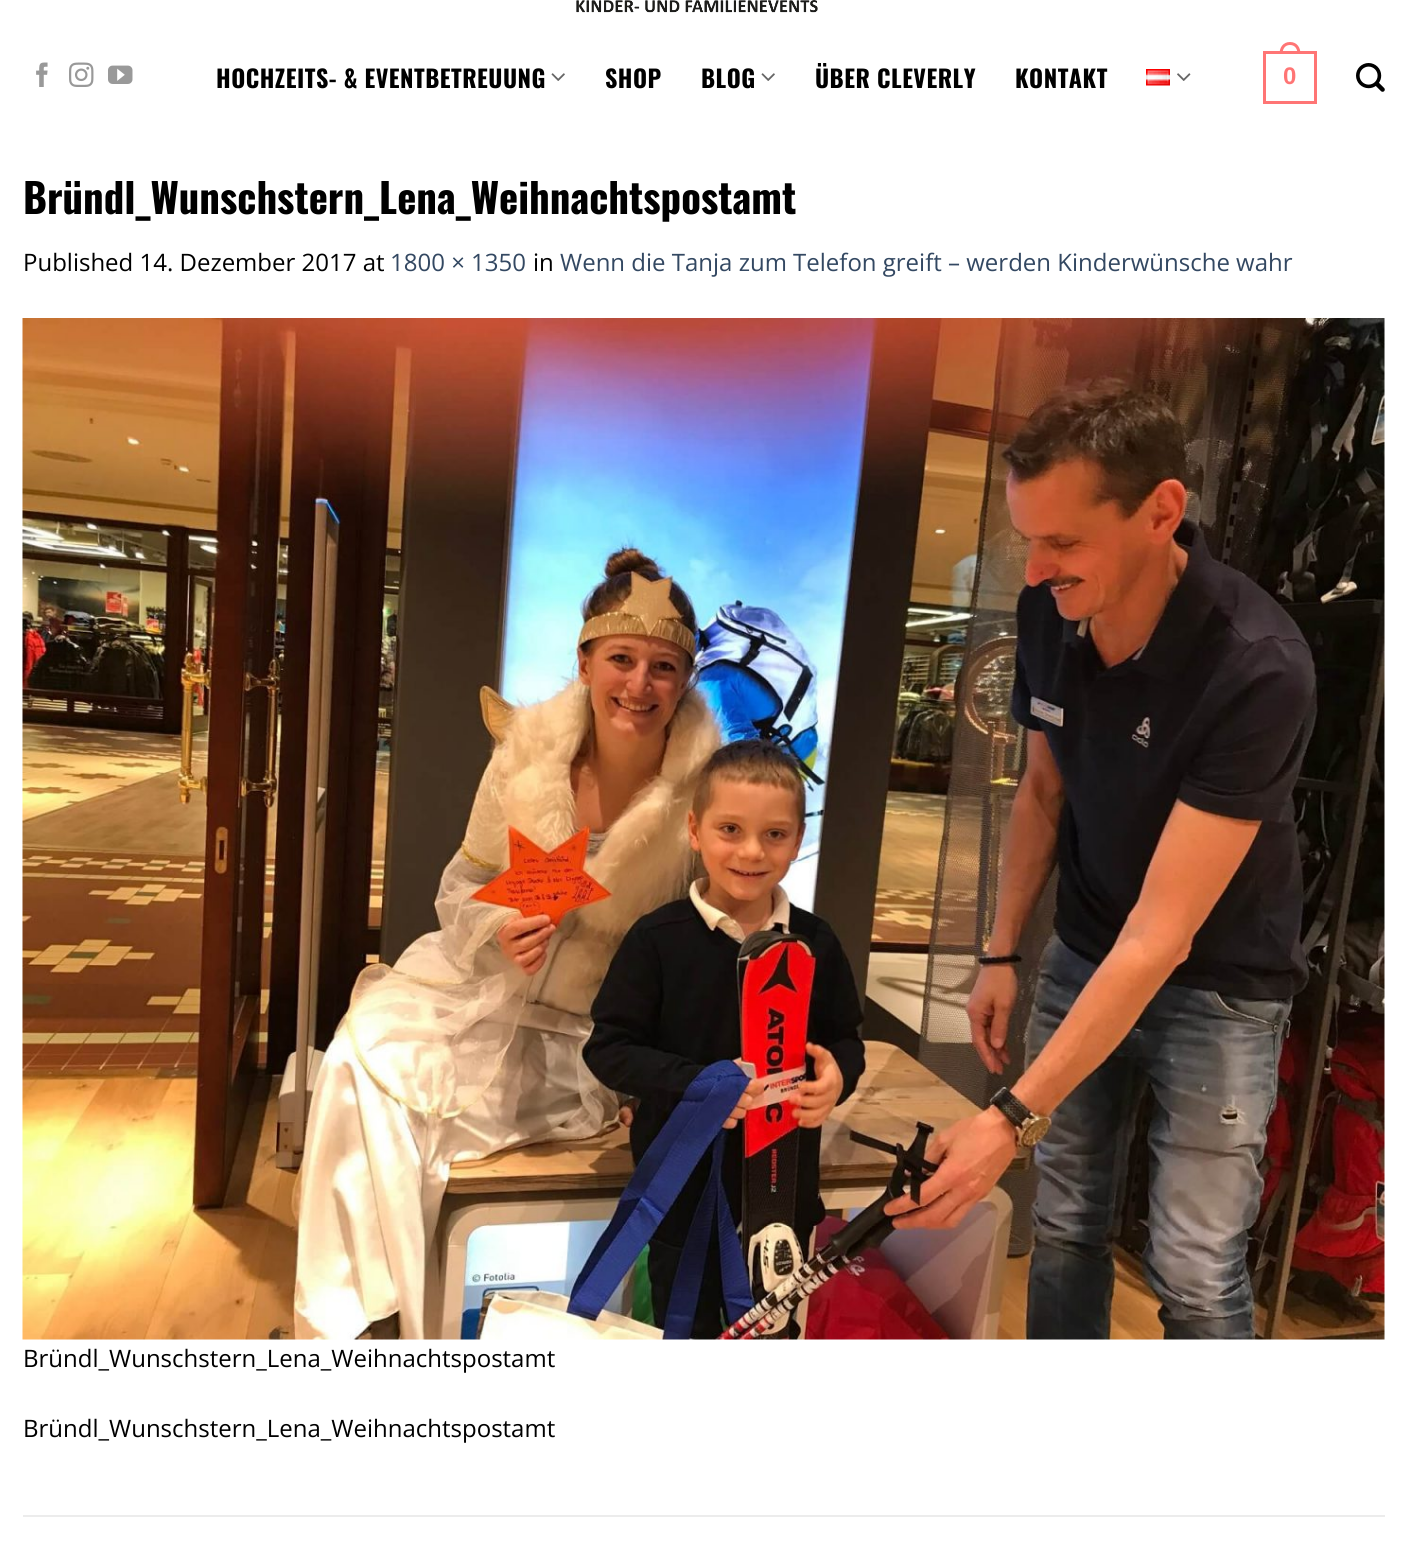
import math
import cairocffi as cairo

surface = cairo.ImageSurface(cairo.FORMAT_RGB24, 1406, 1542)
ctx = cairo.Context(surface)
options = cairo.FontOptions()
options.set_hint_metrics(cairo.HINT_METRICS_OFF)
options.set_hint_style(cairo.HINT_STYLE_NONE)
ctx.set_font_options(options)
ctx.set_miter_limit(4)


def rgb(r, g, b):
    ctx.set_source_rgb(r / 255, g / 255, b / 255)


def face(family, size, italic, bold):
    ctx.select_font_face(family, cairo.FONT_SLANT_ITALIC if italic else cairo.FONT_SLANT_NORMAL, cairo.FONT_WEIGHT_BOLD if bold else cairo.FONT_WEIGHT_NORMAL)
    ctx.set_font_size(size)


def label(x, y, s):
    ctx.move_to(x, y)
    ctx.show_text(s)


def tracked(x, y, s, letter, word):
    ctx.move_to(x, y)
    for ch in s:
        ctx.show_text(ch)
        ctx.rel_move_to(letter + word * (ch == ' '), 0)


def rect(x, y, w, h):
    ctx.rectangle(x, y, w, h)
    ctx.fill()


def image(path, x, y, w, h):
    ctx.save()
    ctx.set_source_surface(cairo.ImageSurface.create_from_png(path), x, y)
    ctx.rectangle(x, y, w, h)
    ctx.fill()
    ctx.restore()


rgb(255, 255, 255)
ctx.paint()
image('image0.png', 576, 0, 242, 13)
image('image1.png', 36, 62, 12, 25)
image('image2.png', 69, 62, 25, 25)
image('image3.png', 108, 65, 25, 19)
face('Oswald', 24, 0, 1)
rgb(0, 0, 0)
tracked(216, 88, 'HOCHZEITS- & EVENTBETREUUNG', 0.5, 0)
image('image4.png', 551, 73, 14, 8)
tracked(605, 88, 'SHOP', 0.5, 0)
tracked(701, 88, 'BLOG', 0.5, 0)
image('image4.png', 761, 73, 14, 8)
tracked(815, 88, 'ÜBER CLEVERLY', 0.5, 0)
tracked(1015, 88, 'KONTAKT', 0.5, 0)
image('image5.png', 1146, 69, 24, 17)
image('image6.png', 1177, 73, 14, 8)
ctx.rectangle(1264.5, 52.5, 51, 50)
rgb(255, 117, 117)
ctx.set_line_width(3)
ctx.stroke()
ctx.set_fill_rule(cairo.FILL_RULE_EVEN_ODD)
ctx.new_path()
ctx.move_to(1290, 42)
ctx.curve_to(1297, 42, 1300.5, 47.5, 1300.5, 54)
ctx.line_to(1279.5, 54)
ctx.curve_to(1279.5, 47.5, 1283, 42, 1290, 42)
ctx.close_path()
ctx.move_to(1290, 45)
ctx.curve_to(1295.5, 45, 1297.5, 49.5, 1297.5, 54)
ctx.line_to(1282.5, 54)
ctx.curve_to(1282.5, 49.5, 1284.5, 45, 1290, 45)
ctx.close_path()
ctx.fill()
face('Liberation Sans', 24, 0, 1)
tracked(1283, 84, '0', 0.5, 0)
image('image7.png', 1356, 63, 29, 29)
face('Oswald', 40.75, 0, 1)
rgb(0, 0, 0)
label(23, 214, 'Bründl_Wunschstern_Lena_Weihnachtspostamt')
face('Open Sans', 24, 0, 0)
label(23, 271, 'Published 14. Dezember 2017 at')
rgb(51, 72, 98)
label(390, 271, '1800 × 1350')
rgb(0, 0, 0)
label(533, 271, 'in')
rgb(51, 72, 98)
label(560, 271, 'Wenn die Tanja zum Telefon greift – werden Kinderwünsche wahr')
image('image8.png', 22, 318, 1363, 1022)
rgb(0, 0, 0)
label(23, 1367, 'Bründl_Wunschstern_Lena_Weihnachtspostamt')
label(23, 1437, 'Bründl_Wunschstern_Lena_Weihnachtspostamt')
rgb(236, 236, 236)
rect(23, 1515, 1362, 2)
surface.write_to_png('render.png')
